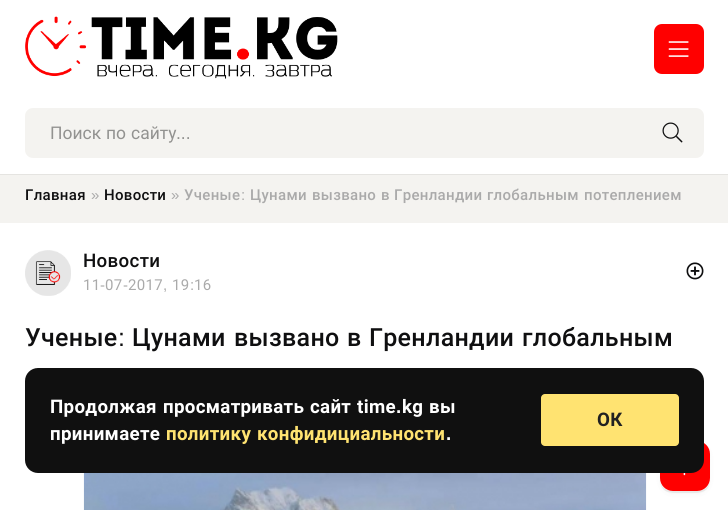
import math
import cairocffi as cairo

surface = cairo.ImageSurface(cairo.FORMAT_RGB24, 728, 510)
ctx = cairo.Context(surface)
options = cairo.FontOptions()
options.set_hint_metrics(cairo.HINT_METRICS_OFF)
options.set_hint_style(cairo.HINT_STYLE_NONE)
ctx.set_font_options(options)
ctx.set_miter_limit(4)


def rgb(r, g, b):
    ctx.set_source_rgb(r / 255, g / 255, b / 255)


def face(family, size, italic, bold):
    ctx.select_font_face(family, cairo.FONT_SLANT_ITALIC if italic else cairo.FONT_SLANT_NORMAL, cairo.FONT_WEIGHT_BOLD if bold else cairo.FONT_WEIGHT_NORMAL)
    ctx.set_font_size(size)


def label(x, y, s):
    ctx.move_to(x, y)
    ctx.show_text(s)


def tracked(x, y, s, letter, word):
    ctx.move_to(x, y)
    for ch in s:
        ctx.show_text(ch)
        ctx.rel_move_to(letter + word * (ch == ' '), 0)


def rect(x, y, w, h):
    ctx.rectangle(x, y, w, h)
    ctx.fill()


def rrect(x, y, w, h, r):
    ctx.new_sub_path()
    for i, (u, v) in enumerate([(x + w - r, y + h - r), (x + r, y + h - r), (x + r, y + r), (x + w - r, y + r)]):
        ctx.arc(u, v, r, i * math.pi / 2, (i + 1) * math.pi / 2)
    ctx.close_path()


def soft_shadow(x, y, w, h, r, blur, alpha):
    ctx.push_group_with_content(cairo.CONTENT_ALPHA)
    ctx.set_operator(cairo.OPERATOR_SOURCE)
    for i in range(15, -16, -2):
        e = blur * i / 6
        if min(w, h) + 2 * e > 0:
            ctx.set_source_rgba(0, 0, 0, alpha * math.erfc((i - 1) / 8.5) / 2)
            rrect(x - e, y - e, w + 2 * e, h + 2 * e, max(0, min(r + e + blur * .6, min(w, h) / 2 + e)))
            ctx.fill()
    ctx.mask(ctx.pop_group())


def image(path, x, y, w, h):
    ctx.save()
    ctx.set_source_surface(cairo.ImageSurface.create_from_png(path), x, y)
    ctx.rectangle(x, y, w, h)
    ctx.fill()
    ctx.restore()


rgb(244, 243, 240)
ctx.paint()
rgb(229, 228, 225)
ctx.new_path()
ctx.move_to(0, 174)
ctx.line_to(0, 175)
ctx.line_to(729, 175)
ctx.line_to(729, 1)
ctx.line_to(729, 174)
ctx.close_path()
ctx.fill()
rgb(255, 255, 255)
rect(0, 0, 728, 174)
image('image0.png', 25, 16, 313, 63)
rgb(255, 0, 0)
rrect(654, 24, 50, 50, 8)
ctx.fill()
image('image1.png', 668, 41, 21, 16)
rgb(244, 243, 240)
rrect(25, 108, 679, 50, 8)
ctx.fill()
face('Roboto', 17.5, 0, 0)
rgb(146, 146, 144)
label(50, 139, 'Поиск')
label(106, 139, 'по')
label(131, 139, 'сайту')
face('Liberation Sans', 17.5, 0, 0)
label(176, 139, '...')
image('image2.png', 662, 122, 21, 21)
face('Roboto Medium', 15, 0, 0)
rgb(15, 15, 16)
tracked(25, 200, 'Главная', 0.3, 0)
face('Liberation Sans', 15, 0, 0)
rgb(170, 170, 170)
tracked(91, 200, '»', 0.3, 0)
face('Roboto Medium', 15, 0, 0)
rgb(15, 15, 16)
tracked(104, 200, 'Новости', 0.3, 0)
face('Liberation Sans', 15, 0, 0)
rgb(170, 170, 170)
tracked(171, 200, '»', 0.3, 0)
face('Roboto Medium', 15, 0, 0)
tracked(184, 200, 'Ученые', 0.3, 0)
face('Liberation Sans', 15, 0, 0)
tracked(241, 200, ':', 0.3, 0)
face('Roboto Medium', 15, 0, 0)
tracked(250, 200, 'Цунами', 0.3, 0)
tracked(312, 200, 'вызвано', 0.3, 0)
tracked(381, 200, 'в', 0.3, 0)
tracked(394, 200, 'Гренландии', 0.3, 0)
tracked(487, 200, 'глобальным', 0.3, 0)
tracked(584, 200, 'потеплением', 0.3, 0)
rgb(255, 255, 255)
rect(0, 223, 728, 287)
image('image3.png', 25, 250, 46, 46)
face('Roboto Medium', 18.75, 0, 0)
rgb(15, 15, 16)
tracked(83, 267, 'Новости', 0.3, 0)
face('Roboto', 15, 0, 0)
rgb(170, 170, 170)
tracked(83, 290, '11', 0.3, 0)
face('Liberation Sans', 15, 0, 0)
tracked(100, 290, '-', 0.3, 0)
face('Roboto', 15, 0, 0)
tracked(105, 290, '07', 0.3, 0)
face('Liberation Sans', 15, 0, 0)
tracked(123, 290, '-', 0.3, 0)
face('Roboto', 15, 0, 0)
tracked(128, 290, '2017', 0.3, 0)
tracked(172, 290, '19', 0.3, 0)
face('Liberation Sans', 15, 0, 0)
tracked(190, 290, ':', 0.3, 0)
face('Roboto', 15, 0, 0)
tracked(194, 290, '16', 0.3, 0)
face('Liberation Sans', 15, 0, 0)
tracked(163, 290, ',', 0.3, 0)
image('image4.png', 686, 262, 18, 18)
face('Roboto Medium', 25, 0, 0)
rgb(15, 15, 16)
tracked(25, 346, 'Ученые', 0.3, 0)
face('Liberation Sans', 25, 0, 0)
tracked(118, 346, ':', 0.3, 0)
face('Roboto Medium', 25, 0, 0)
tracked(132, 346, 'Цунами', 0.3, 0)
tracked(234, 346, 'вызвано', 0.3, 0)
tracked(347, 346, 'в', 0.3, 0)
tracked(369, 346, 'Гренландии', 0.3, 0)
tracked(522, 346, 'глобальным', 0.3, 0)
image('image5.png', 83, 473, 564, 37)
rgb(239, 239, 238)
ctx.new_path()
ctx.move_to(660, 479)
ctx.curve_to(660, 495, 673, 493, 685, 493)
ctx.curve_to(697, 493, 710, 495, 710, 479)
ctx.curve_to(710, 493, 695, 491, 685, 491)
ctx.curve_to(675, 491, 660, 493, 660, 479)
ctx.close_path()
ctx.fill()
rgb(56, 50, 48)
soft_shadow(660, 444, 50, 50, 13, 2.5, 0.05)
rgb(255, 0, 0)
rrect(660, 441, 50, 50, 13)
ctx.fill()
rgb(16, 16, 16)
rrect(25, 368, 679, 105, 13)
ctx.fill()
face('Roboto', 18.75, 0, 1)
rgb(255, 255, 255)
tracked(50, 413, 'Продолжая', 0.3, 0)
tracked(163, 413, 'просматривать', 0.3, 0)
tracked(310, 413, 'сайт', 0.3, 0)
tracked(357, 413, 'time', 0.3, 0)
face('Liberation Sans', 18.75, 0, 1)
tracked(396, 413, '.', 0.3, 0)
face('Roboto', 18.75, 0, 1)
tracked(402, 413, 'kg', 0.3, 0)
tracked(429, 413, 'вы', 0.3, 0)
tracked(50, 440, 'принимаете', 0.3, 0)
rgb(255, 227, 113)
tracked(166, 440, 'политику', 0.3, 0)
tracked(257, 440, 'конфидициальности', 0.3, 0)
face('Liberation Sans', 18.75, 0, 1)
rgb(255, 255, 255)
tracked(446, 440, '.', 0.3, 0)
rgb(255, 227, 113)
rrect(541, 394, 138, 52, 4)
ctx.fill()
face('Roboto', 18.75, 0, 1)
rgb(33, 33, 33)
tracked(597, 426, 'ОК', 0.3, 0)
image('image6.png', 683, 473, 3, 3)
surface.write_to_png('render.png')
